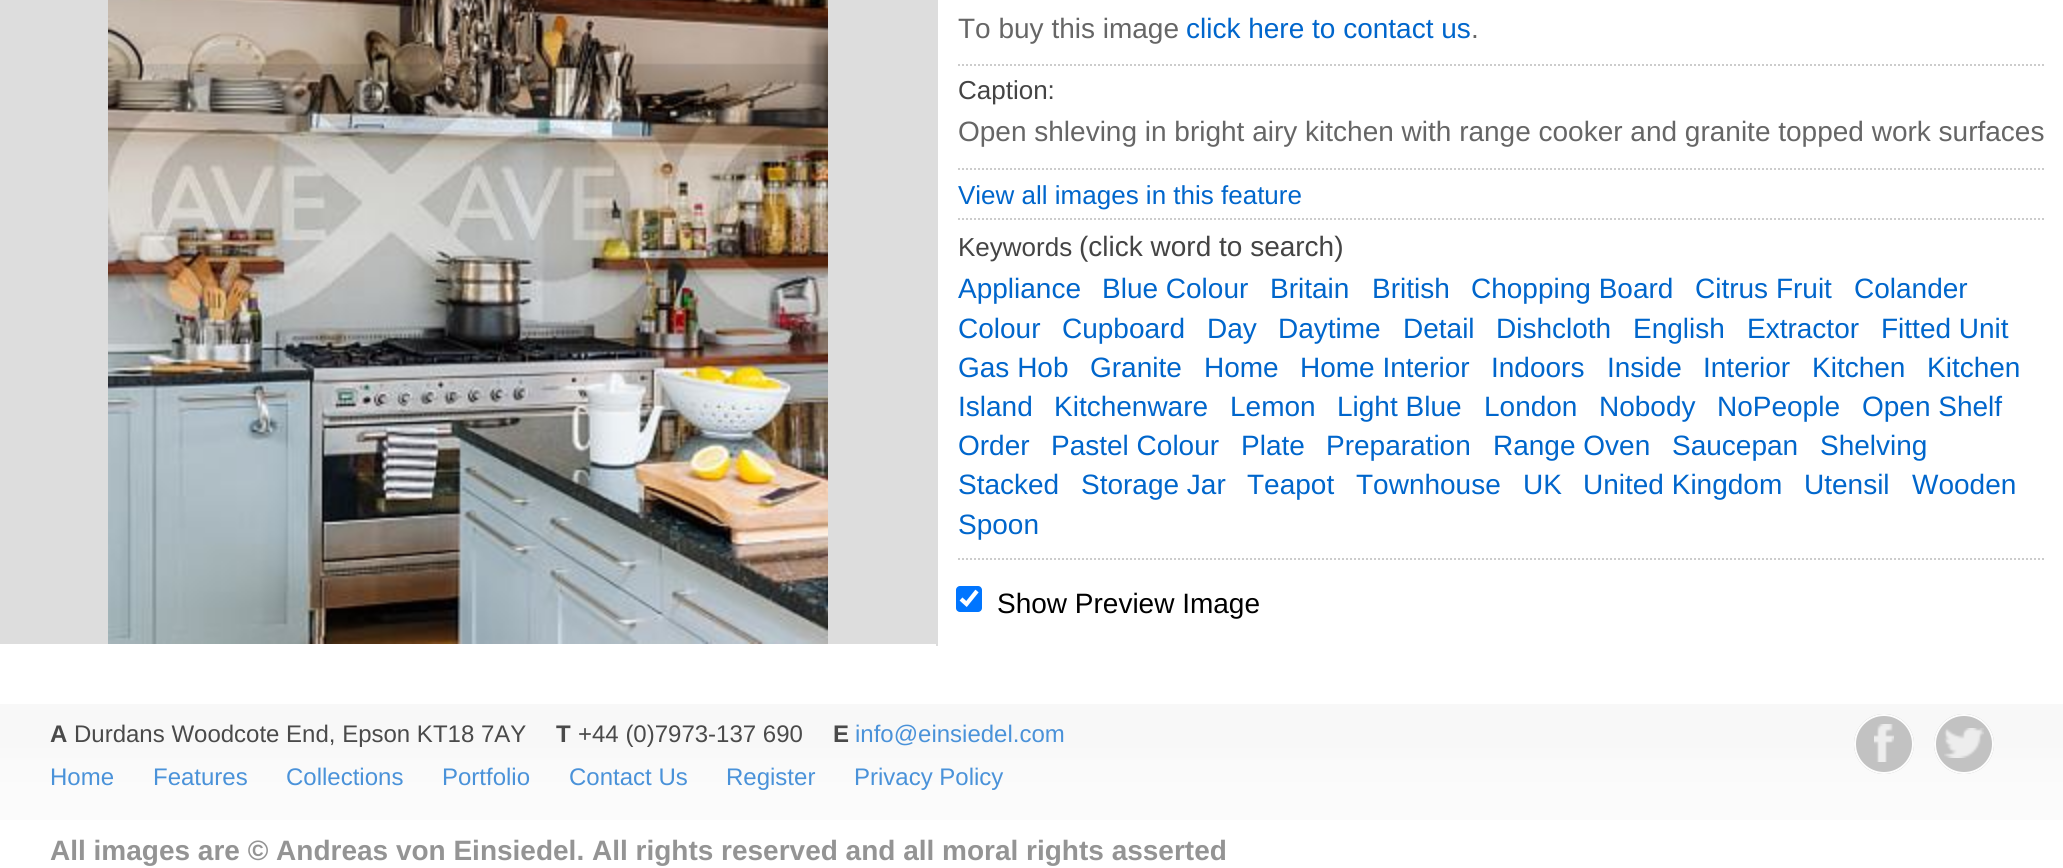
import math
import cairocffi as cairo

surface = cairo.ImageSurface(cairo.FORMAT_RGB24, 2063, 868)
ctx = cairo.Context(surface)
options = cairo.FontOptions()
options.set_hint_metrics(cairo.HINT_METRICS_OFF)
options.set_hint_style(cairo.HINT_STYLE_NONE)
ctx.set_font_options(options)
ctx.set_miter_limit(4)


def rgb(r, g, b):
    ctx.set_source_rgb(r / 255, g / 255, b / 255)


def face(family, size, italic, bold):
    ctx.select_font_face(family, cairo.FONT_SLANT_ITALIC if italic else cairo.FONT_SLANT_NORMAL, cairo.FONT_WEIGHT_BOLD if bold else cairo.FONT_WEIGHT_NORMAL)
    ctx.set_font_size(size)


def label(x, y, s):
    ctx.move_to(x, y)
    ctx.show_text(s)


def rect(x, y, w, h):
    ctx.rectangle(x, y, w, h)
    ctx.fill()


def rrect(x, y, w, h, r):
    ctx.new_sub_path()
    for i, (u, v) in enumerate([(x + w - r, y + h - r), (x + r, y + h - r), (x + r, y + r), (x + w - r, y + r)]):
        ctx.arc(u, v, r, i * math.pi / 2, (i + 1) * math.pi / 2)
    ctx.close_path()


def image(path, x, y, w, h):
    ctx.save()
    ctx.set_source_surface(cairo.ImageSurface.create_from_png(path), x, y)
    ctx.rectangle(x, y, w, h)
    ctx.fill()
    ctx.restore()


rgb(255, 255, 255)
ctx.paint()
rgb(221, 221, 221)
rect(0, 0, 936, 644)
rect(936, 0, 2, 646)
image('image0.png', 108, 0, 720, 644)
ctx.new_path()
ctx.move_to(958, 65)
ctx.line_to(2044, 65)
rgb(204, 204, 204)
ctx.set_dash([2, 2])
ctx.stroke()
face('Liberation Sans', 28, 0, 0)
rgb(102, 102, 102)
label(958, 38, 'To buy this image')
rgb(0, 102, 204)
label(1186, 38, 'click here to contact us')
rgb(102, 102, 102)
label(1471, 38, '.')
ctx.new_path()
ctx.move_to(958, 169)
ctx.line_to(2044, 169)
rgb(204, 204, 204)
ctx.stroke()
face('Liberation Sans', 26, 0, 0)
rgb(68, 68, 68)
label(958, 99, 'Caption:')
face('Liberation Sans', 28, 0, 0)
rgb(102, 102, 102)
label(958, 141, 'Open shleving in bright airy kitchen with range cooker and granite topped work surfaces')
ctx.new_path()
ctx.move_to(958, 219)
ctx.line_to(2044, 219)
rgb(204, 204, 204)
ctx.stroke()
face('Liberation Sans', 26, 0, 0)
rgb(0, 102, 204)
label(958, 204, 'View all images in this feature')
ctx.new_path()
ctx.move_to(958, 559)
ctx.line_to(2044, 559)
rgb(204, 204, 204)
ctx.stroke()
rgb(68, 68, 68)
label(958, 256, 'Keywords')
face('Liberation Sans', 28, 0, 0)
label(1079, 256, '(click word to search)')
rgb(0, 102, 204)
label(958, 298, 'Appliance')
label(1102, 298, 'Blue Colour')
label(1270, 298, 'Britain')
label(1372, 298, 'British')
label(1471, 298, 'Chopping Board')
label(1695, 298, 'Citrus Fruit')
label(1854, 298, 'Colander')
label(958, 338, 'Colour')
label(1062, 338, 'Cupboard')
label(1207, 338, 'Day')
label(1278, 338, 'Daytime')
label(1403, 338, 'Detail')
label(1496, 338, 'Dishcloth')
label(1633, 338, 'English')
label(1747, 338, 'Extractor')
label(1881, 338, 'Fitted Unit')
label(958, 377, 'Gas Hob')
label(1090, 377, 'Granite')
label(1204, 377, 'Home')
label(1300, 377, 'Home Interior')
label(1491, 377, 'Indoors')
label(1607, 377, 'Inside')
label(1703, 377, 'Interior')
label(1812, 377, 'Kitchen')
label(1927, 377, 'Kitchen')
label(958, 416, 'Island')
label(1054, 416, 'Kitchenware')
label(1230, 416, 'Lemon')
label(1337, 416, 'Light Blue')
label(1484, 416, 'London')
label(1599, 416, 'Nobody')
label(1717, 416, 'NoPeople')
label(1862, 416, 'Open Shelf')
label(958, 455, 'Order')
label(1051, 455, 'Pastel Colour')
label(1241, 455, 'Plate')
label(1326, 455, 'Preparation')
label(1493, 455, 'Range Oven')
label(1672, 455, 'Saucepan')
label(1820, 455, 'Shelving')
label(958, 494, 'Stacked')
label(1081, 494, 'Storage Jar')
label(1247, 494, 'Teapot')
label(1356, 494, 'Townhouse')
label(1523, 494, 'UK')
label(1583, 494, 'United Kingdom')
label(1804, 494, 'Utensil')
label(1912, 494, 'Wooden')
label(958, 534, 'Spoon')
rgb(0, 117, 255)
rrect(956, 586, 26, 26, 4)
ctx.fill()
ctx.new_path()
ctx.move_to(961, 599)
ctx.line_to(966.5, 604)
ctx.line_to(977, 591)
rgb(255, 255, 255)
ctx.set_line_width(4.2)
ctx.set_dash([])
ctx.stroke()
rgb(0, 0, 0)
label(997, 613, 'Show Preview Image')
image('image1.png', 0, 704, 2063, 116)
face('Liberation Sans', 24, 0, 1)
rgb(74, 74, 74)
label(50, 742, 'A')
face('Liberation Sans', 24, 0, 0)
label(74, 742, 'Durdans Woodcote End, Epson KT18 7AY')
face('Liberation Sans', 24, 0, 1)
label(556, 742, 'T')
face('Liberation Sans', 24, 0, 0)
label(578, 742, '+44 (0)7973-137 690')
face('Liberation Sans', 24, 0, 1)
label(833, 742, 'E')
face('Liberation Sans', 24, 0, 0)
rgb(74, 146, 217)
label(855, 742, 'info@einsiedel.com')
label(50, 785, 'Home')
label(153, 785, 'Features')
label(286, 785, 'Collections')
label(442, 785, 'Portfolio')
label(569, 785, 'Contact Us')
label(726, 785, 'Register')
label(854, 785, 'Privacy Policy')
face('Liberation Sans', 28, 0, 1)
rgb(148, 148, 148)
label(50, 860, 'All images are © Andreas von Einsiedel. All rights reserved and all moral rights asserted')
rgb(194, 194, 194)
ctx.new_path()
ctx.arc(1884, 744, 30, 0, 2 * math.pi)
ctx.fill()
image('image2.png', 1874, 724, 20, 38)
ctx.arc(1884, 744, 29, 0, 2 * math.pi)
rgb(253, 253, 253)
ctx.set_line_width(2)
ctx.stroke()
rgb(194, 194, 194)
ctx.arc(1964, 744, 30, 0, 2 * math.pi)
ctx.fill()
image('image3.png', 1944, 728, 40, 30)
ctx.arc(1964, 744, 29, 0, 2 * math.pi)
rgb(253, 253, 253)
ctx.stroke()
surface.write_to_png('render.png')
